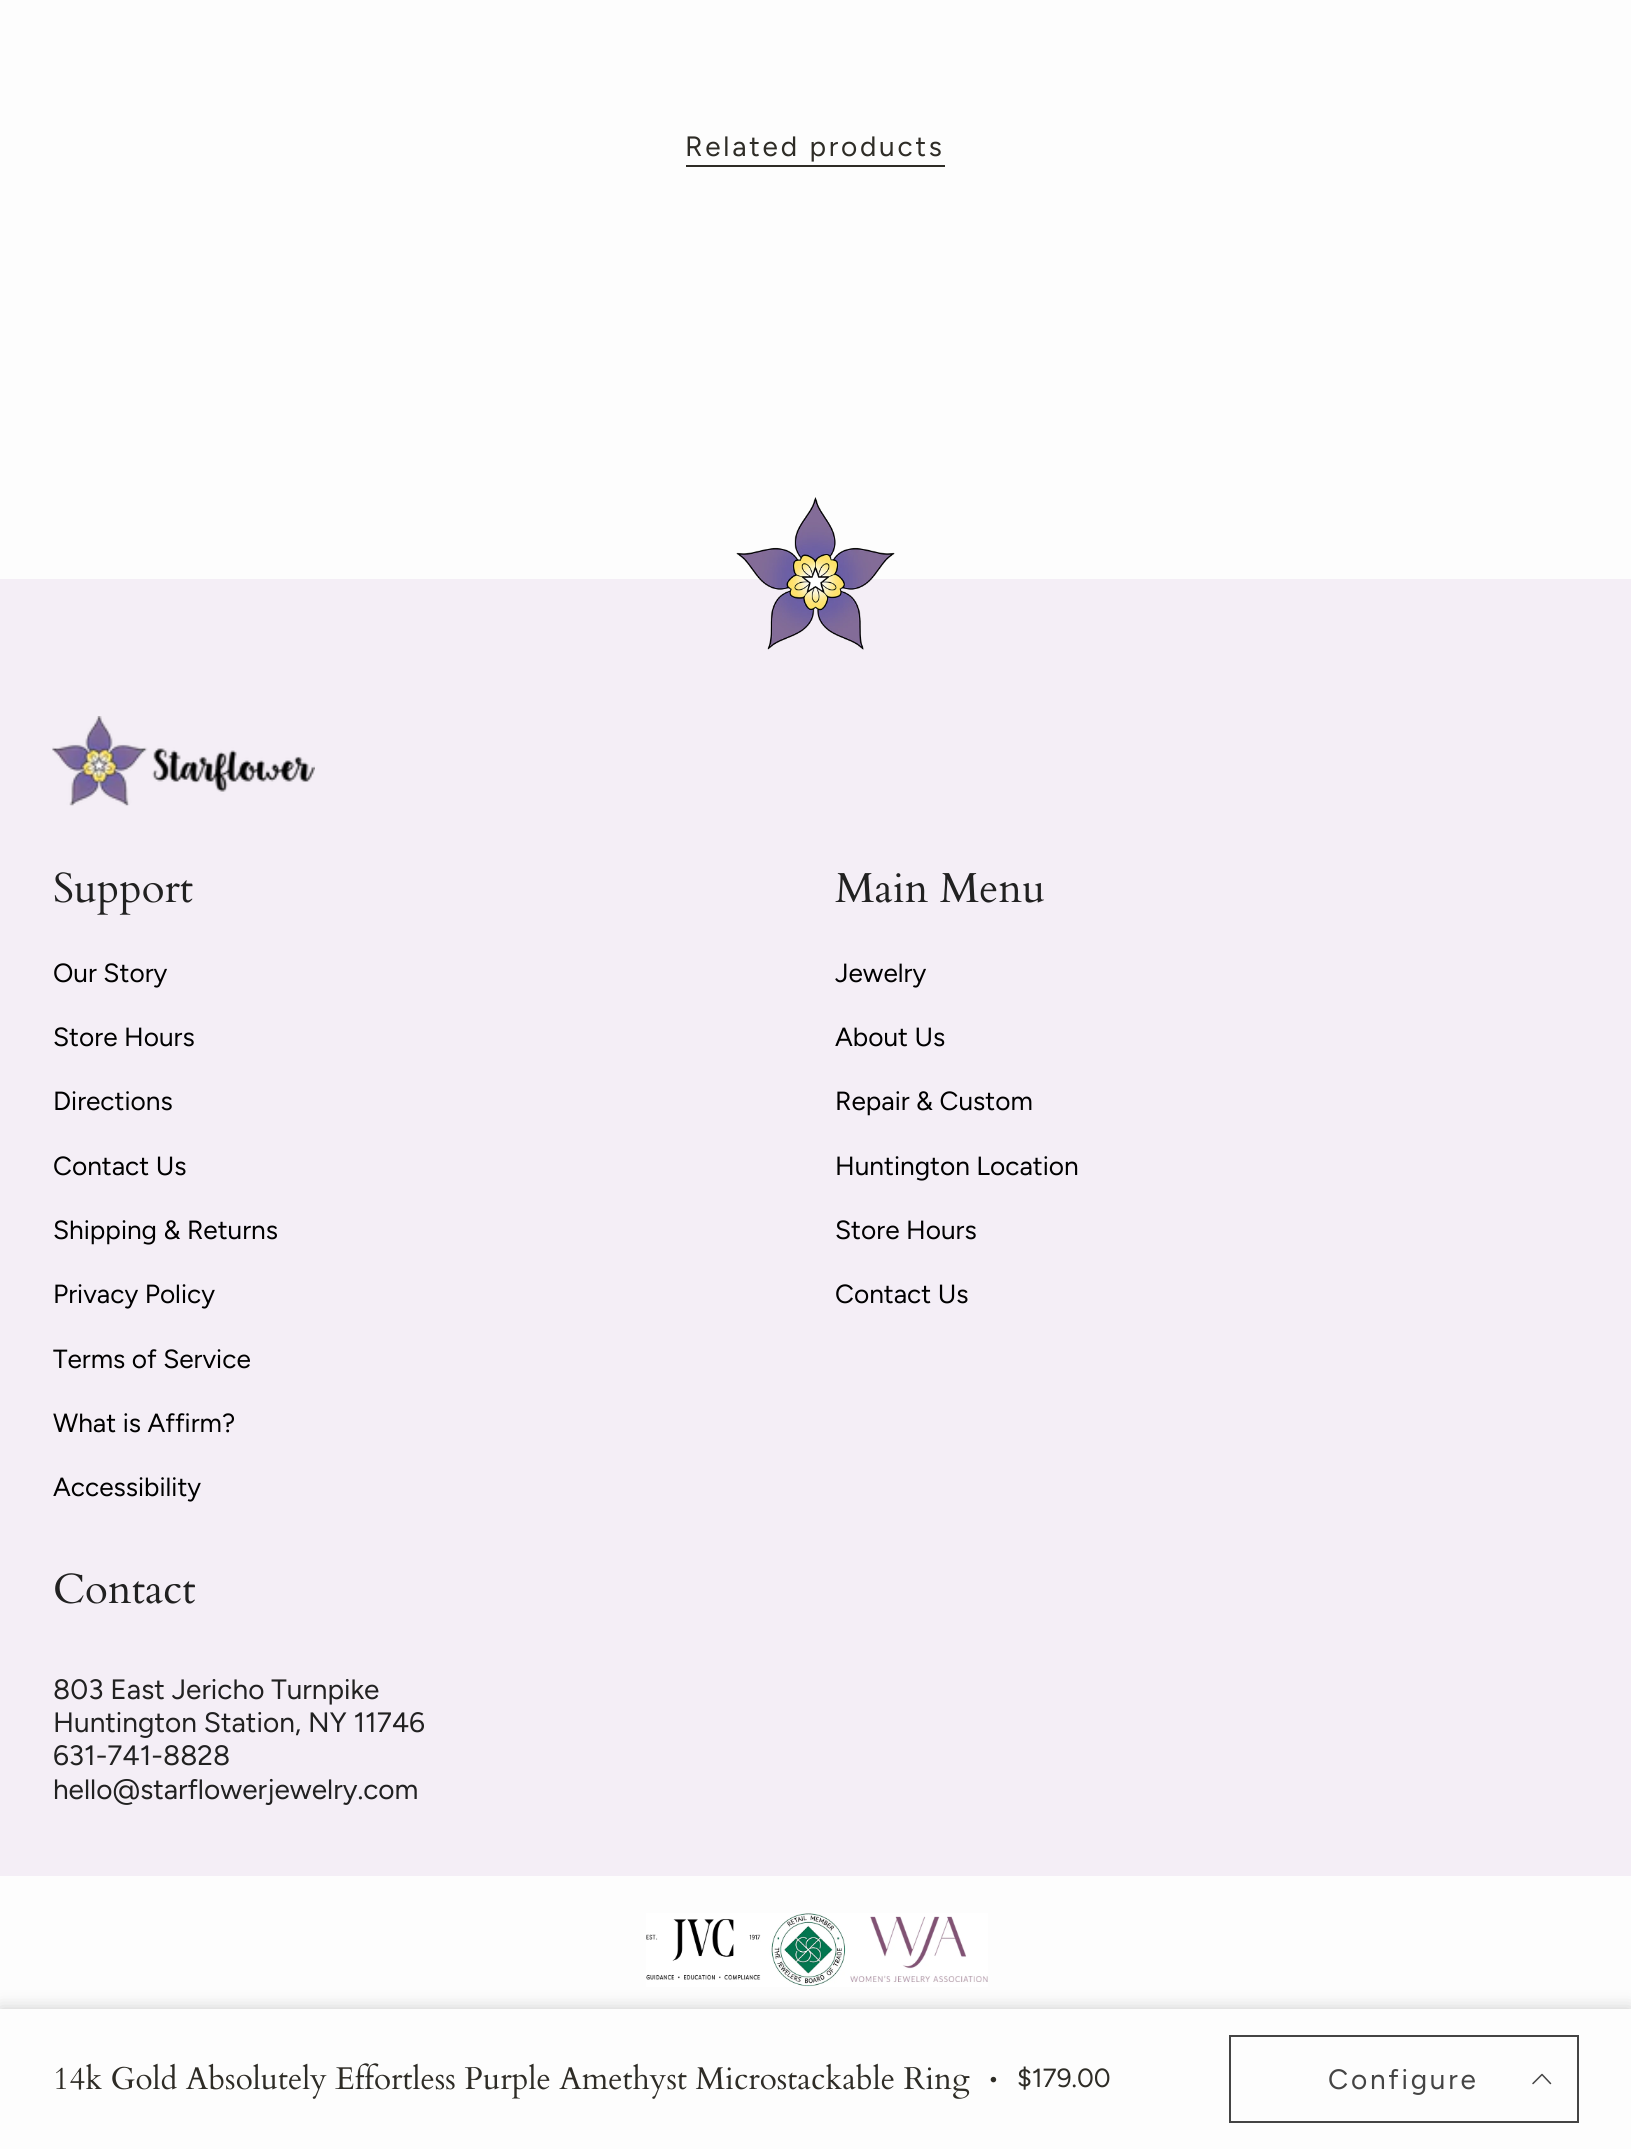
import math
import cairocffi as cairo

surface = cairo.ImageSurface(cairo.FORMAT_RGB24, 1631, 2149)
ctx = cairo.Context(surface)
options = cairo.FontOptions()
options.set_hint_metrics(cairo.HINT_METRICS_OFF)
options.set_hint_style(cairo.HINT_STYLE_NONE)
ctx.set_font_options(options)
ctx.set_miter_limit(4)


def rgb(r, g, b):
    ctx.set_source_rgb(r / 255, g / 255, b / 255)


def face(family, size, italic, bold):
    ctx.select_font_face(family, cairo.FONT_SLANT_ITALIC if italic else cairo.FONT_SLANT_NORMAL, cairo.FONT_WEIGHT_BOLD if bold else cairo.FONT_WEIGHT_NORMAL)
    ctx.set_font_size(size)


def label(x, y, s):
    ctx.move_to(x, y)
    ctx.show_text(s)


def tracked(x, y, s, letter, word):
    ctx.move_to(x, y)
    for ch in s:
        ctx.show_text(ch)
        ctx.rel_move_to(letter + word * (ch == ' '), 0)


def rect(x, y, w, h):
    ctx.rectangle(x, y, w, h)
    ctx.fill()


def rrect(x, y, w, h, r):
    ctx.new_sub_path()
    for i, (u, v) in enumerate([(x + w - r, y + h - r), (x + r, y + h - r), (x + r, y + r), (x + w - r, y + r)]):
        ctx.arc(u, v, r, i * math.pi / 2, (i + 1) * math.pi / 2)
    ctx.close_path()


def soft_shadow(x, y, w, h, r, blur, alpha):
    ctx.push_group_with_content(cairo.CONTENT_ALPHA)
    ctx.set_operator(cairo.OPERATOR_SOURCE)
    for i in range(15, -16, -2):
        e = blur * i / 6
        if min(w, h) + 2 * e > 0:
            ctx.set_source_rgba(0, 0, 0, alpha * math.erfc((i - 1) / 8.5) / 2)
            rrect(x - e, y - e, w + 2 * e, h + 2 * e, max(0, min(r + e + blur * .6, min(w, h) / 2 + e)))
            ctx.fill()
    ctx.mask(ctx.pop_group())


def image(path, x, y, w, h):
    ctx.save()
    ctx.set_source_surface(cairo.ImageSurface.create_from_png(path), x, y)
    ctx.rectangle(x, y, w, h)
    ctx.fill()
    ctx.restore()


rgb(253, 253, 253)
ctx.paint()
face('Figtree', 28, 0, 0)
rgb(46, 44, 38)
tracked(685, 156, 'Related products', 2.75, 0)
rect(686, 165, 259, 2)
rgb(244, 238, 246)
rect(0, 579, 1631, 1297)
image('image0.png', 736, 497, 159, 153)
image('image2.png', 646, 1913, 342, 74)
rgb(0, 0, 0)
soft_shadow(0, 2009, 1631, 140, 0, 9, 0.2)
rgb(253, 253, 253)
rect(0, 2009, 1631, 140)
face('Cardo', 31.5, 0, 0)
rgb(46, 44, 38)
label(53, 2089, '14k Gold Absolutely Effortless Purple Amethyst Microstackable Ring')
face('Figtree', 26.25, 0, 0)
label(987, 2087, '•')
label(1017, 2087, '$179.00')
ctx.rectangle(1230, 2036, 348, 86)
rgb(68, 68, 68)
ctx.stroke()
face('Figtree', 28, 0, 0)
tracked(1328, 2089, 'Configure', 2.75, 0)
ctx.new_path()
ctx.move_to(1533, 2083.5)
ctx.line_to(1542, 2074.5)
ctx.line_to(1550.5, 2083.5)
ctx.set_line_width(1.5)
ctx.set_line_cap(cairo.LINE_CAP_ROUND)
ctx.set_line_join(cairo.LINE_JOIN_ROUND)
ctx.stroke()
image('image1.png', 52, 716, 263, 90)
face('Cardo', 42, 0, 0)
rgb(33, 33, 33)
label(53, 902, 'Support')
face('Figtree', 26.25, 0, 0)
rgb(0, 0, 0)
label(53, 982, 'Our Story')
label(53, 1046, 'Store Hours')
label(53, 1110, 'Directions')
label(53, 1175, 'Contact Us')
label(53, 1239, 'Shipping & Returns')
label(53, 1303, 'Privacy Policy')
ctx.save()
ctx.rectangle(53, 957, 743, 550)
ctx.clip()
label(53, 1368, 'Terms of Service')
ctx.restore()
label(53, 1432, 'What is Affirm?')
label(53, 1496, 'Accessibility')
face('Cardo', 42, 0, 0)
rgb(33, 33, 33)
label(835, 902, 'Main Menu')
face('Figtree', 26.25, 0, 0)
rgb(0, 0, 0)
label(835, 982, 'Jewelry')
label(835, 1046, 'About Us')
label(835, 1110, 'Repair & Custom')
label(835, 1175, 'Huntington Location')
label(835, 1239, 'Store Hours')
label(835, 1303, 'Contact Us')
face('Cardo', 42, 0, 0)
rgb(33, 33, 33)
label(53, 1603, 'Contact')
face('Figtree', 28, 0, 0)
label(53, 1699, '803 East Jericho Turnpike')
label(53, 1732, 'Huntington Station, NY 11746')
label(53, 1765, '631-741-8828')
label(53, 1799, 'hello@starflowerjewelry.com')
surface.write_to_png('render.png')
